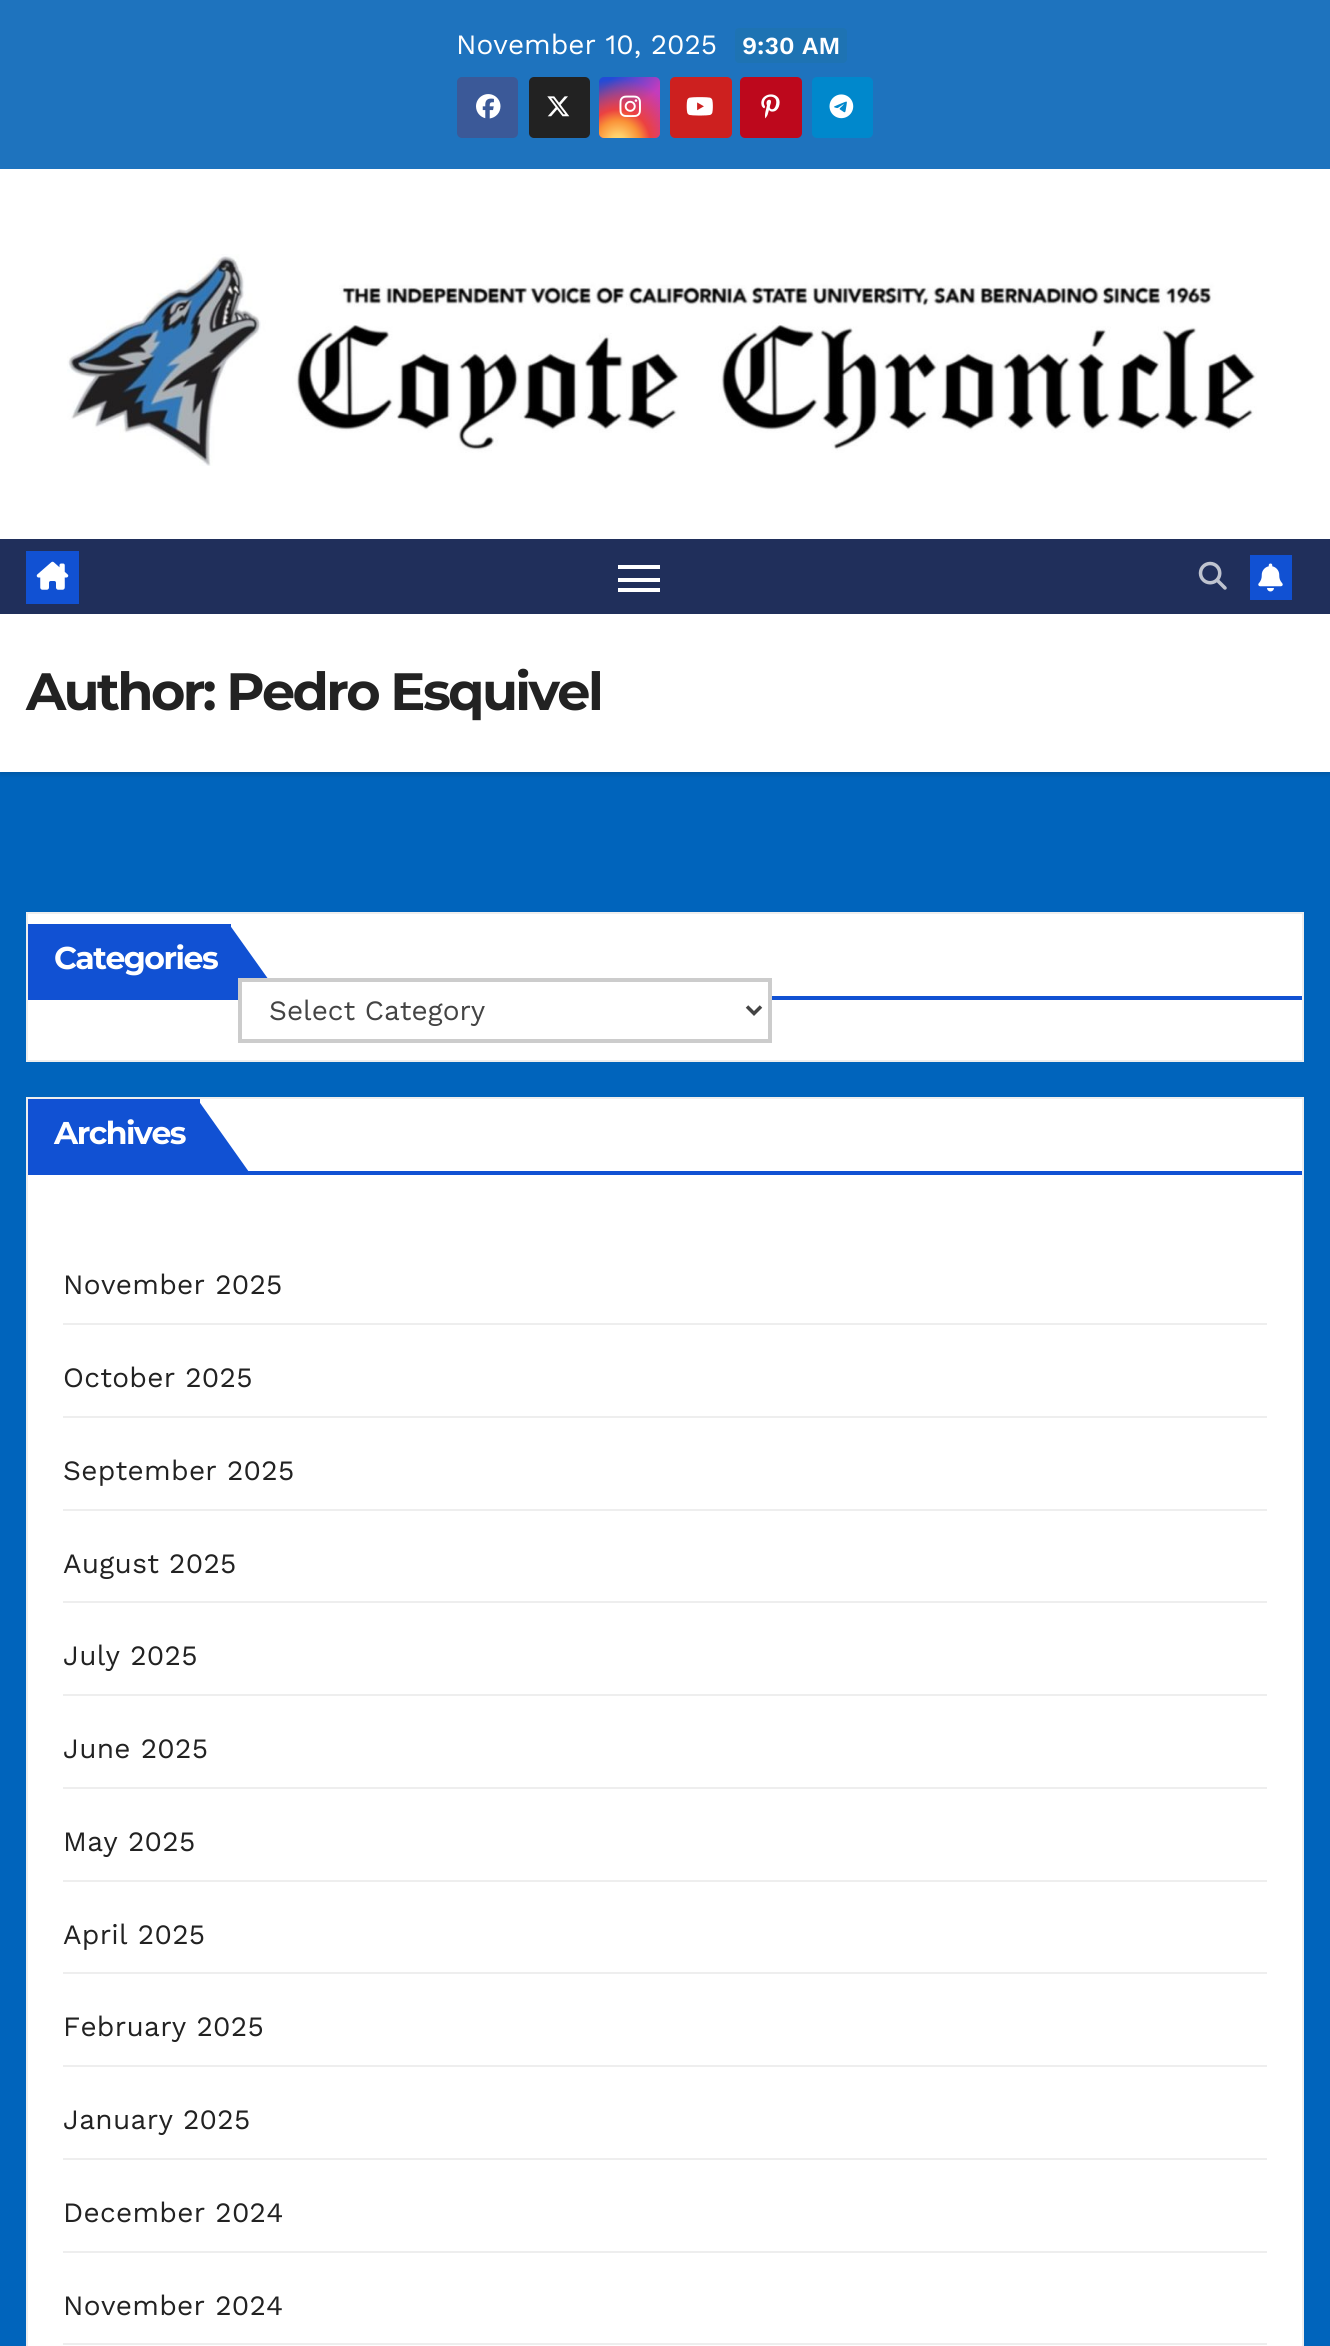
import math
import cairocffi as cairo

surface = cairo.ImageSurface(cairo.FORMAT_RGB24, 1330, 2346)
ctx = cairo.Context(surface)
options = cairo.FontOptions()
options.set_hint_metrics(cairo.HINT_METRICS_OFF)
options.set_hint_style(cairo.HINT_STYLE_NONE)
ctx.set_font_options(options)
ctx.set_miter_limit(4)


def rgb(r, g, b):
    ctx.set_source_rgb(r / 255, g / 255, b / 255)


def face(family, size, italic, bold):
    ctx.select_font_face(family, cairo.FONT_SLANT_ITALIC if italic else cairo.FONT_SLANT_NORMAL, cairo.FONT_WEIGHT_BOLD if bold else cairo.FONT_WEIGHT_NORMAL)
    ctx.set_font_size(size)


def label(x, y, s):
    ctx.move_to(x, y)
    ctx.show_text(s)


def tracked(x, y, s, letter, word):
    ctx.move_to(x, y)
    for ch in s:
        ctx.show_text(ch)
        ctx.rel_move_to(letter + word * (ch == ' '), 0)


def rect(x, y, w, h):
    ctx.rectangle(x, y, w, h)
    ctx.fill()


def rrect(x, y, w, h, r):
    ctx.new_sub_path()
    for i, (u, v) in enumerate([(x + w - r, y + h - r), (x + r, y + h - r), (x + r, y + r), (x + w - r, y + r)]):
        ctx.arc(u, v, r, i * math.pi / 2, (i + 1) * math.pi / 2)
    ctx.close_path()


def soft_shadow(x, y, w, h, r, blur, alpha):
    ctx.push_group_with_content(cairo.CONTENT_ALPHA)
    ctx.set_operator(cairo.OPERATOR_SOURCE)
    for i in range(15, -16, -2):
        e = blur * i / 6
        if min(w, h) + 2 * e > 0:
            ctx.set_source_rgba(0, 0, 0, alpha * math.erfc((i - 1) / 8.5) / 2)
            rrect(x - e, y - e, w + 2 * e, h + 2 * e, max(0, min(r + e + blur * .6, min(w, h) / 2 + e)))
            ctx.fill()
    ctx.mask(ctx.pop_group())


def image(path, x, y, w, h):
    ctx.save()
    ctx.set_source_surface(cairo.ImageSurface.create_from_png(path), x, y)
    ctx.rectangle(x, y, w, h)
    ctx.fill()
    ctx.restore()


rgb(0, 100, 188)
ctx.paint()
rgb(30, 115, 190)
rect(0, 0, 1330, 169)
face('Work Sans', 28, 0, 0)
rgb(255, 255, 255)
label(456, 54, 'November 10, 2025')
rgb(30, 115, 179)
rrect(735, 28, 112, 35, 4)
ctx.fill()
face('Work Sans SemiBold', 24.5, 0, 0)
rgb(255, 255, 255)
label(742, 54, '9:30 AM')
rgb(59, 89, 152)
rrect(457, 77, 61, 61, 5)
ctx.fill()
image('image0.png', 476, 94, 25, 25)
rgb(34, 34, 34)
rrect(529, 77, 61, 61, 5)
ctx.fill()
image('image1.png', 547, 96, 23, 21)
gradient = cairo.LinearGradient(599, 77, 660, 138)
gradient.add_color_stop_rgba(0.12, 0.137, 0.294, 0.843, 1)
gradient.add_color_stop_rgba(0.58, 0.765, 0.235, 0.745, 1)
ctx.set_source(gradient)
rrect(599, 77, 61, 61, 5)
ctx.fill()
gradient = cairo.RadialGradient(618, 142, 0, 618, 142, 77)
gradient.add_color_stop_rgba(0, 1, 0.882, 0.49, 1)
gradient.add_color_stop_rgba(0.1, 1, 0.804, 0.412, 1)
gradient.add_color_stop_rgba(0.28, 0.98, 0.569, 0.216, 1)
gradient.add_color_stop_rgba(0.42, 0.922, 0.255, 0.255, 1)
gradient.add_color_stop_rgba(0.82, 0.922, 0.255, 0.255, 0)
ctx.set_source(gradient)
rrect(599, 77, 61, 61, 5)
ctx.fill()
image('image2.png', 619, 95, 22, 22)
rgb(205, 32, 31)
rrect(670, 77, 62, 61, 5)
ctx.fill()
image('image3.png', 686, 97, 27, 19)
rgb(189, 8, 28)
rrect(740, 77, 62, 61, 5)
ctx.fill()
image('image4.png', 761, 94, 19, 25)
rgb(0, 136, 204)
rrect(812, 77, 61, 61, 5)
ctx.fill()
image('image5.png', 829, 94, 25, 25)
rgb(255, 255, 255)
rect(0, 169, 1330, 370)
image('image6.png', 67, 254, 1190, 212)
rgb(0, 0, 0)
soft_shadow(0, 616, 1330, 158, 0, 2.5, 0.15)
rgb(32, 47, 91)
rect(0, 539, 1330, 75)
rgb(17, 81, 211)
rect(26, 551, 53, 53)
image('image7.png', 36, 561, 33, 29)
rgb(255, 255, 255)
rect(618, 565, 42, 4)
rect(618, 578, 42, 4)
rect(618, 588, 42, 4)
image('image8.png', 1198, 561, 29, 29)
rgb(17, 81, 211)
rect(1250, 555, 42, 45)
image('image9.png', 1258, 563, 25, 29)
rgb(255, 255, 255)
rect(0, 614, 1330, 158)
face('Montserrat', 52.5, 0, 1)
rgb(34, 34, 34)
tracked(26, 710, 'Author: Pedro Esquivel', -2.6, 0)
rgb(255, 255, 255)
ctx.rectangle(27, 913, 1276, 148)
ctx.fill_preserve()
rgb(238, 238, 238)
ctx.stroke()
rgb(17, 81, 211)
rect(28, 924, 203, 72)
face('Montserrat', 31.5, 0, 1)
rgb(255, 255, 255)
tracked(54, 969, 'Categories', -1.5, 0)
rgb(17, 81, 211)
ctx.new_path()
ctx.move_to(229, 924)
ctx.line_to(229, 997)
ctx.line_to(281, 997)
ctx.close_path()
ctx.fill()
rect(28, 996, 1274, 4)
rgb(255, 255, 255)
rect(242, 982, 526, 18)
ctx.rectangle(240, 980, 530, 61)
rgb(204, 204, 204)
ctx.set_line_width(4)
ctx.stroke()
ctx.new_path()
ctx.move_to(747, 1006.5)
ctx.line_to(754, 1013.5)
ctx.line_to(761, 1006.5)
rgb(68, 68, 68)
ctx.set_line_width(3.5)
ctx.stroke()
face('Work Sans', 28, 0, 0)
label(269, 1020, 'Select Category')
rgb(255, 255, 255)
ctx.rectangle(27, 1098, 1276, 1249)
ctx.fill_preserve()
rgb(238, 238, 238)
ctx.set_line_width(2)
ctx.stroke()
rgb(17, 81, 211)
rect(28, 1099, 172, 72)
face('Montserrat', 31.5, 0, 1)
rgb(255, 255, 255)
tracked(54, 1144, 'Archives', -1.5, 0)
rgb(17, 81, 211)
ctx.new_path()
ctx.move_to(198, 1100)
ctx.line_to(198, 1172)
ctx.line_to(249, 1172)
ctx.close_path()
ctx.fill()
rect(28, 1171, 1274, 4)
rgb(238, 238, 238)
rect(63, 1323, 1204, 2)
face('Work Sans', 28, 0, 0)
rgb(34, 34, 34)
tracked(63, 1294, 'November 2025', 0.3, 0)
rgb(238, 238, 238)
rect(63, 1416, 1204, 2)
rgb(34, 34, 34)
tracked(63, 1387, 'October 2025', 0.3, 0)
rgb(238, 238, 238)
rect(63, 1509, 1204, 2)
rgb(34, 34, 34)
tracked(63, 1480, 'September 2025', 0.3, 0)
rgb(238, 238, 238)
rect(63, 1601, 1204, 2)
rgb(34, 34, 34)
tracked(63, 1573, 'August 2025', 0.3, 0)
rgb(238, 238, 238)
rect(63, 1694, 1204, 2)
rgb(34, 34, 34)
tracked(63, 1665, 'July 2025', 0.3, 0)
rgb(238, 238, 238)
rect(63, 1787, 1204, 2)
rgb(34, 34, 34)
tracked(63, 1758, 'June 2025', 0.3, 0)
rgb(238, 238, 238)
rect(63, 1880, 1204, 2)
rgb(34, 34, 34)
tracked(63, 1851, 'May 2025', 0.3, 0)
rgb(238, 238, 238)
rect(63, 1972, 1204, 2)
rgb(34, 34, 34)
tracked(63, 1944, 'April 2025', 0.3, 0)
rgb(238, 238, 238)
rect(63, 2065, 1204, 2)
rgb(34, 34, 34)
tracked(63, 2036, 'February 2025', 0.3, 0)
rgb(238, 238, 238)
rect(63, 2158, 1204, 2)
rgb(34, 34, 34)
tracked(63, 2129, 'January 2025', 0.3, 0)
rgb(238, 238, 238)
rect(63, 2251, 1204, 2)
rgb(34, 34, 34)
tracked(63, 2222, 'December 2024', 0.3, 0)
rgb(238, 238, 238)
rect(63, 2343, 1204, 2)
rgb(34, 34, 34)
tracked(63, 2315, 'November 2024', 0.3, 0)
surface.write_to_png('render.png')
